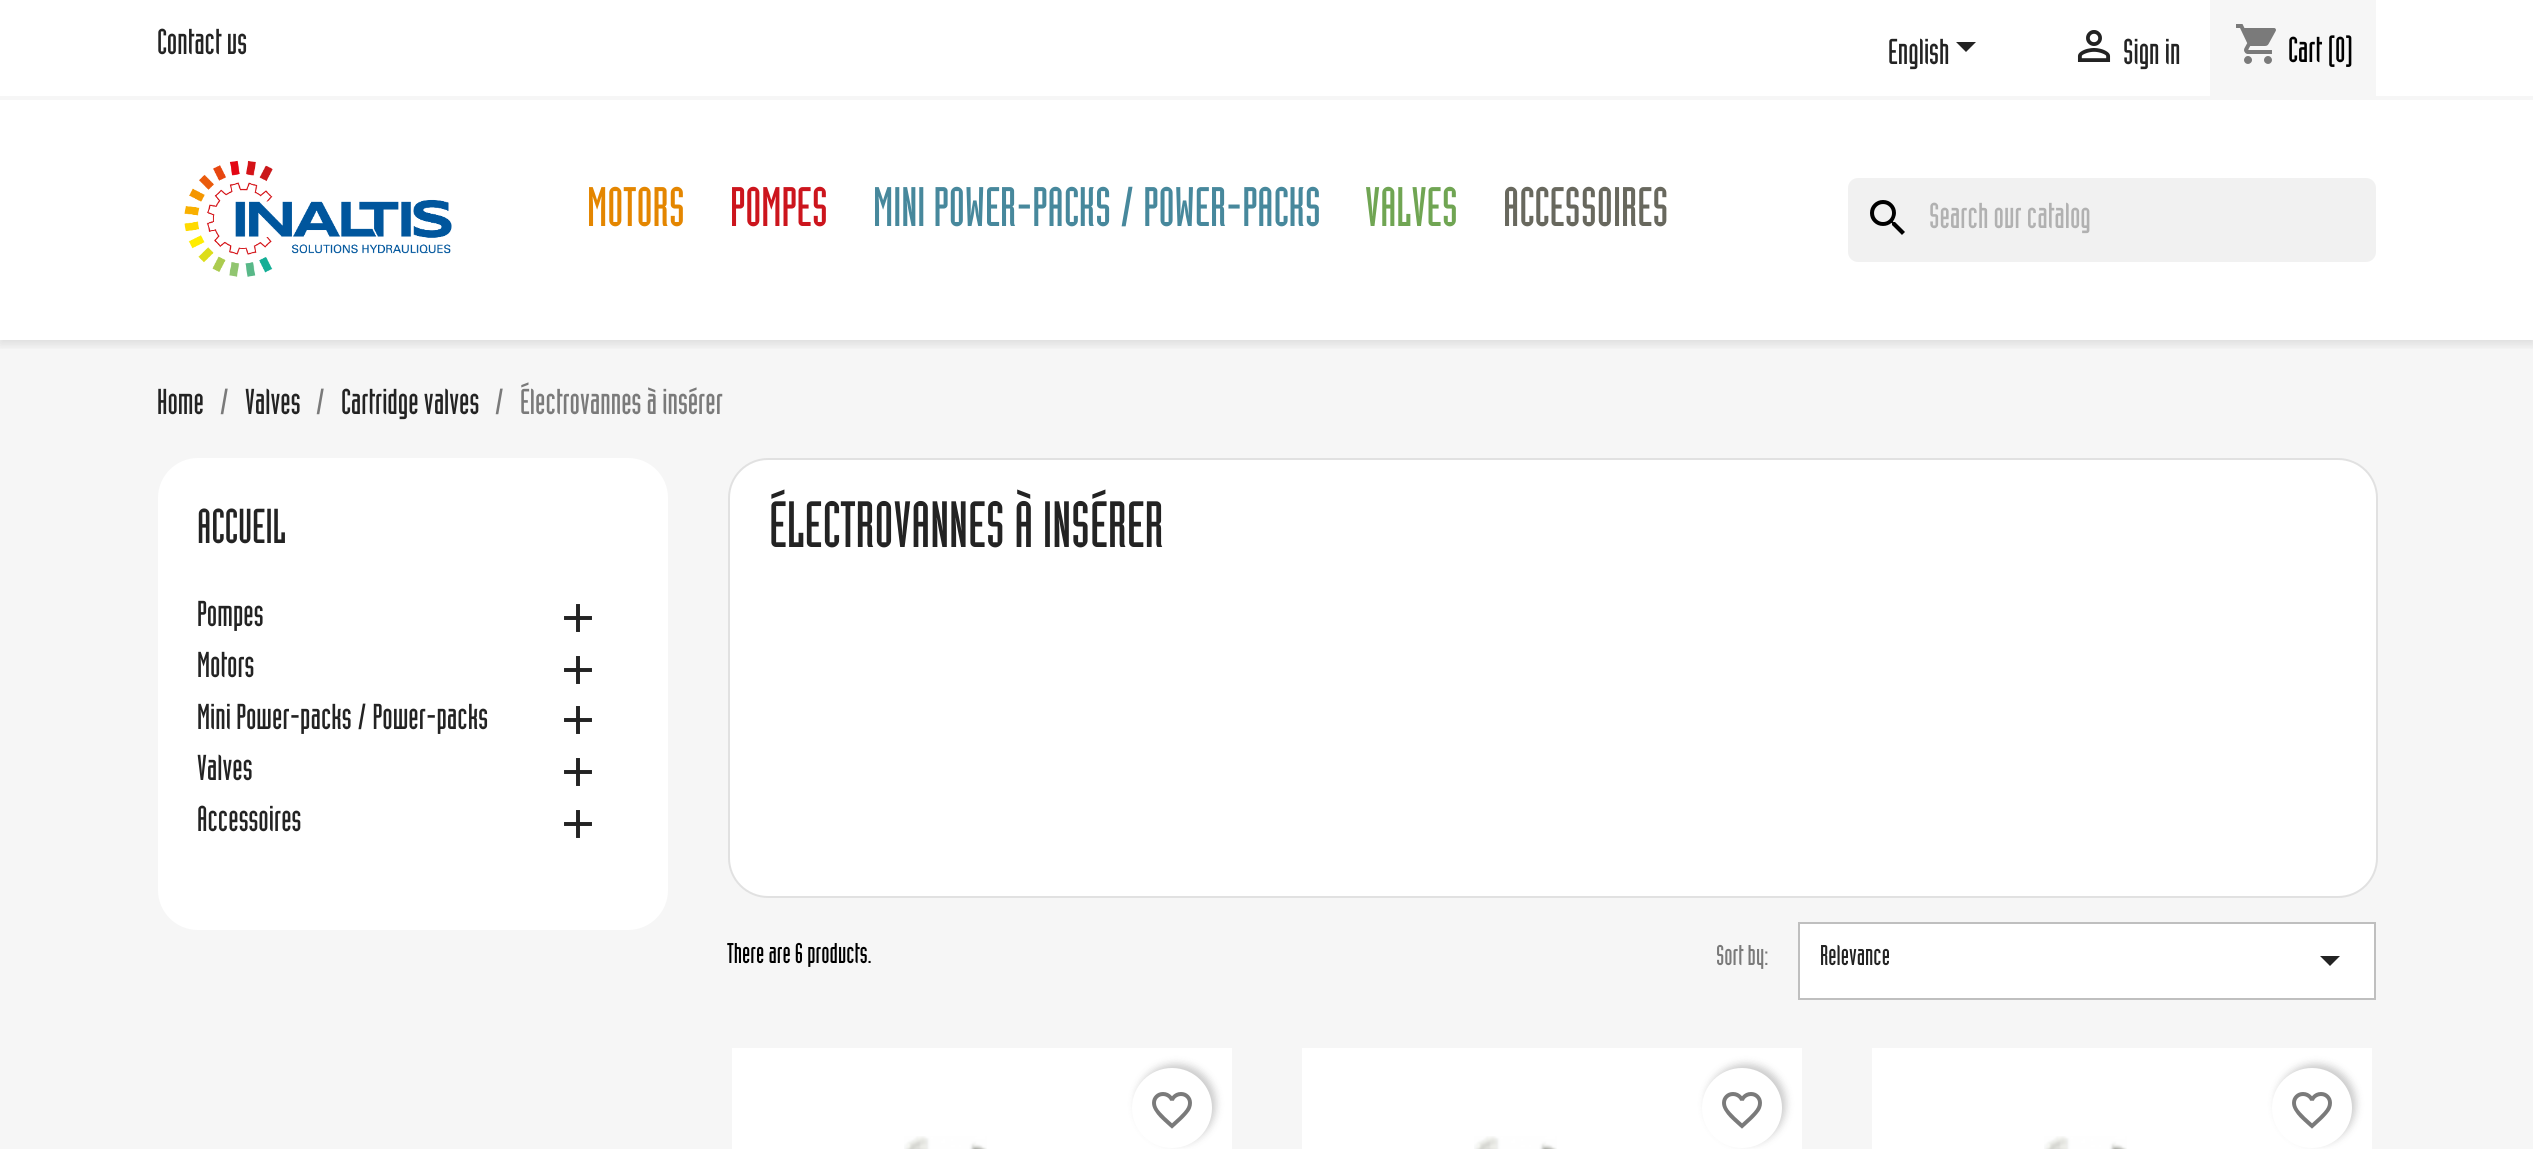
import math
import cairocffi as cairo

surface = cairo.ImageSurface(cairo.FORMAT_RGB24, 2533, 1149)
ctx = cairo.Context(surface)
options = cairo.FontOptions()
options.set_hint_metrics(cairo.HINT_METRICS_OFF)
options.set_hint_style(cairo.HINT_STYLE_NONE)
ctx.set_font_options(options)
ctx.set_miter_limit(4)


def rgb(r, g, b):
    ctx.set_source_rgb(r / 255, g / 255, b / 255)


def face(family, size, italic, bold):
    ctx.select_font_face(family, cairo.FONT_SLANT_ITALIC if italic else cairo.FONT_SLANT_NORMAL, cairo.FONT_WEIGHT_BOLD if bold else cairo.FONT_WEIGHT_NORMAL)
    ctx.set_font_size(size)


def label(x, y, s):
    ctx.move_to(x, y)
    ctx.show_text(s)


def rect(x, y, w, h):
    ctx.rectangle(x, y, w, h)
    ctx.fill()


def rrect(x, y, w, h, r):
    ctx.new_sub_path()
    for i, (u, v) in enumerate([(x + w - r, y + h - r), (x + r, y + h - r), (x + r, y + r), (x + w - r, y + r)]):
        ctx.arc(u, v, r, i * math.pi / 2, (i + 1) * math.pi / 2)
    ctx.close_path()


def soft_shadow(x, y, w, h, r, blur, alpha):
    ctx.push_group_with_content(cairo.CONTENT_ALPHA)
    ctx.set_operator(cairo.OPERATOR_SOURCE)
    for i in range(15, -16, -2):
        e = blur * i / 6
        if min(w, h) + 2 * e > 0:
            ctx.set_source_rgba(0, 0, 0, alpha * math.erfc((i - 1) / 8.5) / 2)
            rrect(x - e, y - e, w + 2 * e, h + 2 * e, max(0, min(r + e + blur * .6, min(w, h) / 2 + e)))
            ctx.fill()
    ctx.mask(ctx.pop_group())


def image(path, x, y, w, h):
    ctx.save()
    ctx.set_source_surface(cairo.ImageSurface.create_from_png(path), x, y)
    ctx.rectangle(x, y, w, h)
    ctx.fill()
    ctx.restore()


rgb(255, 255, 255)
ctx.paint()
rgb(246, 246, 246)
rect(0, 340, 2533, 809)
ctx.save()
ctx.rectangle(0, 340, 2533, 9)
ctx.clip()
rgb(0, 0, 0)
soft_shadow(0, 4, 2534, 340, 0, 5, 0.11)
ctx.restore()
rect(0, 96, 2533, 4)
face('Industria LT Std', 35.25, 0, 0)
rgb(35, 35, 35)
label(157, 54, 'Contact us')
label(1888, 64, 'English')
ctx.new_path()
ctx.move_to(1956, 42)
ctx.line_to(1976, 42)
ctx.line_to(1966, 52)
ctx.close_path()
ctx.fill()
image('image0.png', 2077, 30, 34, 32)
label(2123, 64, 'Sign in')
rgb(246, 246, 246)
rect(2210, 0, 166, 96)
image('image1.png', 2236, 24, 40, 40)
rgb(0, 0, 0)
label(2288, 62, 'Cart (0)')
image('image2.png', 184, 160, 268, 117)
face('Industria LT Std', 54.5, 0, 0)
rgb(228, 134, 0)
label(587, 226, 'MOTORS')
rgb(204, 21, 29)
label(730, 226, 'POMPES')
rgb(71, 136, 156)
label(873, 226, 'MINI POWER-PACKS / POWER-PACKS')
rgb(112, 165, 83)
label(1365, 226, 'VALVES')
rgb(104, 104, 94)
label(1503, 226, 'ACCESSOIRES')
rgb(241, 241, 241)
rrect(1848, 178, 528, 84, 10)
ctx.fill()
image('image3.png', 1870, 200, 35, 35)
face('Industria LT Std', 35.25, 0, 0)
rgb(177, 177, 177)
label(1929, 228, 'Search our catalog')
rgb(35, 35, 35)
label(157, 414, 'Home')
rgb(122, 122, 122)
label(219, 414, '/')
rgb(35, 35, 35)
label(245, 414, 'Valves')
rgb(122, 122, 122)
label(315, 414, '/')
rgb(35, 35, 35)
label(341, 414, 'Cartridge valves')
rgb(122, 122, 122)
label(494, 414, '/')
label(520, 414, 'Électrovannes à insérer')
rgb(255, 255, 255)
rrect(158, 458, 510, 472, 40)
ctx.fill()
face('Industria LT Std', 48, 0, 0)
rgb(35, 35, 35)
label(197, 543, 'ACCUEIL')
face('Industria LT Std', 35.25, 0, 0)
label(197, 626, 'Pompes')
image('image4.png', 564, 604, 28, 28)
label(197, 677, 'Motors')
image('image4.png', 564, 656, 28, 28)
label(197, 729, 'Mini Power-packs / Power-packs')
image('image4.png', 564, 706, 28, 28)
label(197, 780, 'Valves')
image('image4.png', 564, 758, 28, 28)
label(197, 831, 'Accessoires')
image('image4.png', 564, 810, 28, 28)
rgb(255, 255, 255)
rrect(728, 458, 1650, 440, 40)
ctx.fill()
rrect(729, 459, 1648, 438, 39)
ctx.set_source_rgba(0, 0, 0, 0.12)
ctx.stroke()
face('Industria LT Std', 64, 0, 0)
rgb(35, 35, 35)
label(769, 547, 'ÉLECTROVANNES À INSÉRER')
face('Industria LT Std', 28, 0, 0)
rgb(0, 0, 0)
label(727, 963, 'There are 6 products.')
rgb(122, 122, 122)
label(1716, 965, 'Sort by:')
rgb(255, 255, 255)
ctx.rectangle(1799, 923, 576, 76)
ctx.fill_preserve()
rgb(191, 191, 191)
ctx.stroke()
rgb(35, 35, 35)
label(1820, 965, 'Relevance')
ctx.new_path()
ctx.move_to(2320, 956)
ctx.line_to(2340, 956)
ctx.line_to(2330, 966)
ctx.close_path()
ctx.fill()
rgb(255, 255, 255)
rect(732, 1048, 500, 101)
image('image5.png', 904, 1136, 83, 13)
rgb(0, 0, 0)
soft_shadow(1136, 1064, 80, 80, 40, 4, 0.2)
rgb(255, 255, 255)
ctx.arc(1172, 1108, 40, 0, 2 * math.pi)
ctx.fill()
image('image6.png', 1152, 1092, 40, 37)
rect(1302, 1048, 500, 101)
image('image5.png', 1474, 1136, 83, 13)
rgb(0, 0, 0)
soft_shadow(1706, 1064, 80, 80, 40, 4, 0.2)
rgb(255, 255, 255)
ctx.arc(1742, 1108, 40, 0, 2 * math.pi)
ctx.fill()
image('image6.png', 1722, 1092, 40, 37)
rect(1872, 1048, 500, 101)
image('image5.png', 2044, 1136, 83, 13)
rgb(0, 0, 0)
soft_shadow(2276, 1064, 80, 80, 40, 4, 0.2)
rgb(255, 255, 255)
ctx.arc(2312, 1108, 40, 0, 2 * math.pi)
ctx.fill()
image('image6.png', 2292, 1092, 40, 37)
surface.write_to_png('render.png')
